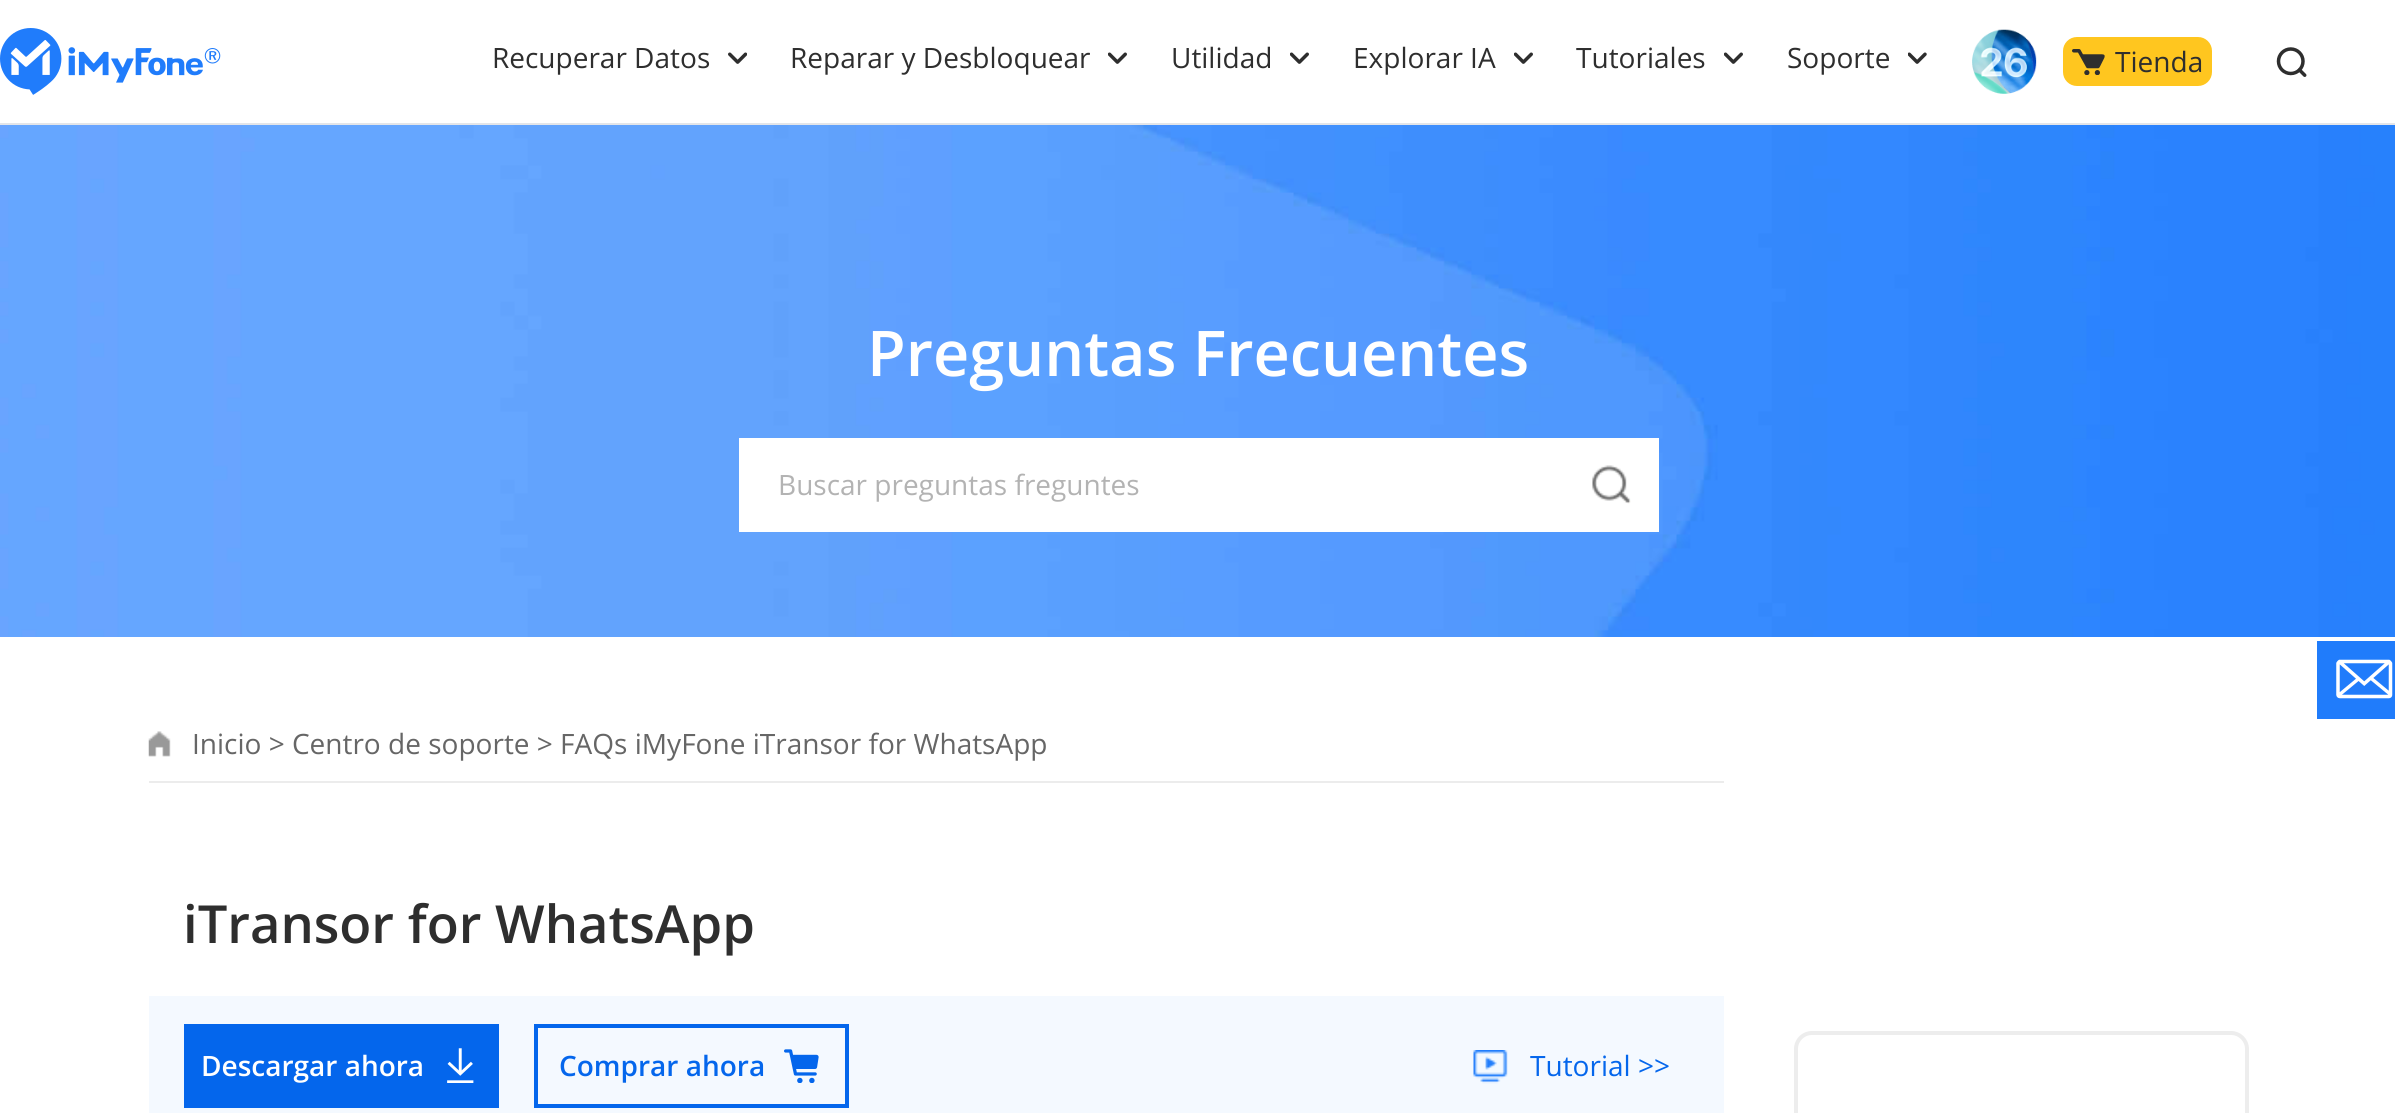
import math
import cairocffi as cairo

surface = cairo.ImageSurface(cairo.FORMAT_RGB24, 2395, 1113)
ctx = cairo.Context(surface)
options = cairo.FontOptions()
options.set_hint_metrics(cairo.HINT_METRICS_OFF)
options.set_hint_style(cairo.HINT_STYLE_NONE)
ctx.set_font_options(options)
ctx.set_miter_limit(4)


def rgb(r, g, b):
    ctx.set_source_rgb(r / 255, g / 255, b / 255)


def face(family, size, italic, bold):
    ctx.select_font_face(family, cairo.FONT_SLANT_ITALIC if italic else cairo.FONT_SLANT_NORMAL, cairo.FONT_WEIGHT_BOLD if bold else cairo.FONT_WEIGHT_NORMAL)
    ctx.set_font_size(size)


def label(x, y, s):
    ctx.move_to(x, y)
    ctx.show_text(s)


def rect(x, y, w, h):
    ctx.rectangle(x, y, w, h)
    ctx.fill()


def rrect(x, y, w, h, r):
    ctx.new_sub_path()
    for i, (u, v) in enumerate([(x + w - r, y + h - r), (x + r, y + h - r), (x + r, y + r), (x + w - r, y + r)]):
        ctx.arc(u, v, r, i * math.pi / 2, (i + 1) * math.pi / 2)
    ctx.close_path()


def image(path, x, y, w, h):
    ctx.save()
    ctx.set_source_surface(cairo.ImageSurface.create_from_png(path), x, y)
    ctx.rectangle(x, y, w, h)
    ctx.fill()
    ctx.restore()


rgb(255, 255, 255)
ctx.paint()
rgb(227, 229, 233)
rect(0, 123, 2395, 2)
image('image0.png', 0, 28, 221, 67)
face('Open Sans', 28, 0, 0)
rgb(46, 46, 46)
label(492, 68, 'Recuperar Datos')
image('image1.png', 728, 52, 19, 12)
label(790, 68, 'Reparar y Desbloquear')
image('image2.png', 1108, 52, 19, 12)
label(1171, 68, 'Utilidad')
image('image2.png', 1290, 52, 19, 12)
label(1353, 68, 'Explorar IA')
image('image2.png', 1514, 52, 19, 12)
label(1576, 68, 'Tutoriales')
image('image2.png', 1724, 52, 19, 12)
label(1787, 68, 'Soporte')
image('image3.png', 1908, 52, 19, 12)
image('image4.png', 1972, 29, 65, 65)
rgb(255, 198, 31)
rrect(2063, 37, 149, 49, 14)
ctx.fill()
image('image5.png', 2072, 49, 33, 26)
rgb(46, 46, 46)
label(2115, 72, 'Tienda')
image('image6.png', 2276, 47, 31, 30)
image('image7.png', 0, 125, 2395, 512)
face('Open Sans SemiBold', 63, 0, 0)
rgb(255, 255, 255)
label(867, 376, 'Preguntas Frecuentes')
rect(739, 438, 920, 94)
face('Open Sans', 28, 0, 0)
rgb(179, 179, 179)
label(778, 495, 'Buscar preguntas freguntes')
image('image8.png', 1592, 465, 39, 39)
rgb(236, 236, 236)
rect(149, 781, 1575, 2)
image('image9.png', 148, 731, 23, 26)
rgb(102, 102, 102)
label(192, 754, 'Inicio > Centro de soporte > FAQs iMyFone iTransor for WhatsApp')
face('Open Sans SemiBold', 52.5, 0, 0)
rgb(46, 46, 46)
label(183, 943, 'iTransor for WhatsApp')
rgb(244, 249, 255)
rect(149, 996, 1575, 117)
rgb(4, 102, 236)
rect(184, 1024, 315, 84)
face('Open Sans SemiBold', 28, 0, 0)
rgb(255, 255, 255)
label(201, 1076, 'Descargar ahora')
image('image10.png', 447, 1048, 27, 35)
ctx.rectangle(536, 1026, 311, 80)
rgb(4, 102, 236)
ctx.set_line_width(4)
ctx.stroke()
label(559, 1076, 'Comprar ahora')
image('image11.png', 784, 1049, 35, 34)
image('image12.png', 1473, 1050, 35, 34)
face('Open Sans', 28, 0, 0)
label(1530, 1076, 'Tutorial >>')
rrect(1796, 1033, 451, 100, 16)
rgb(237, 237, 237)
ctx.stroke()
image('image13.png', 2317, 641, 78, 78)
surface.write_to_png('render.png')
